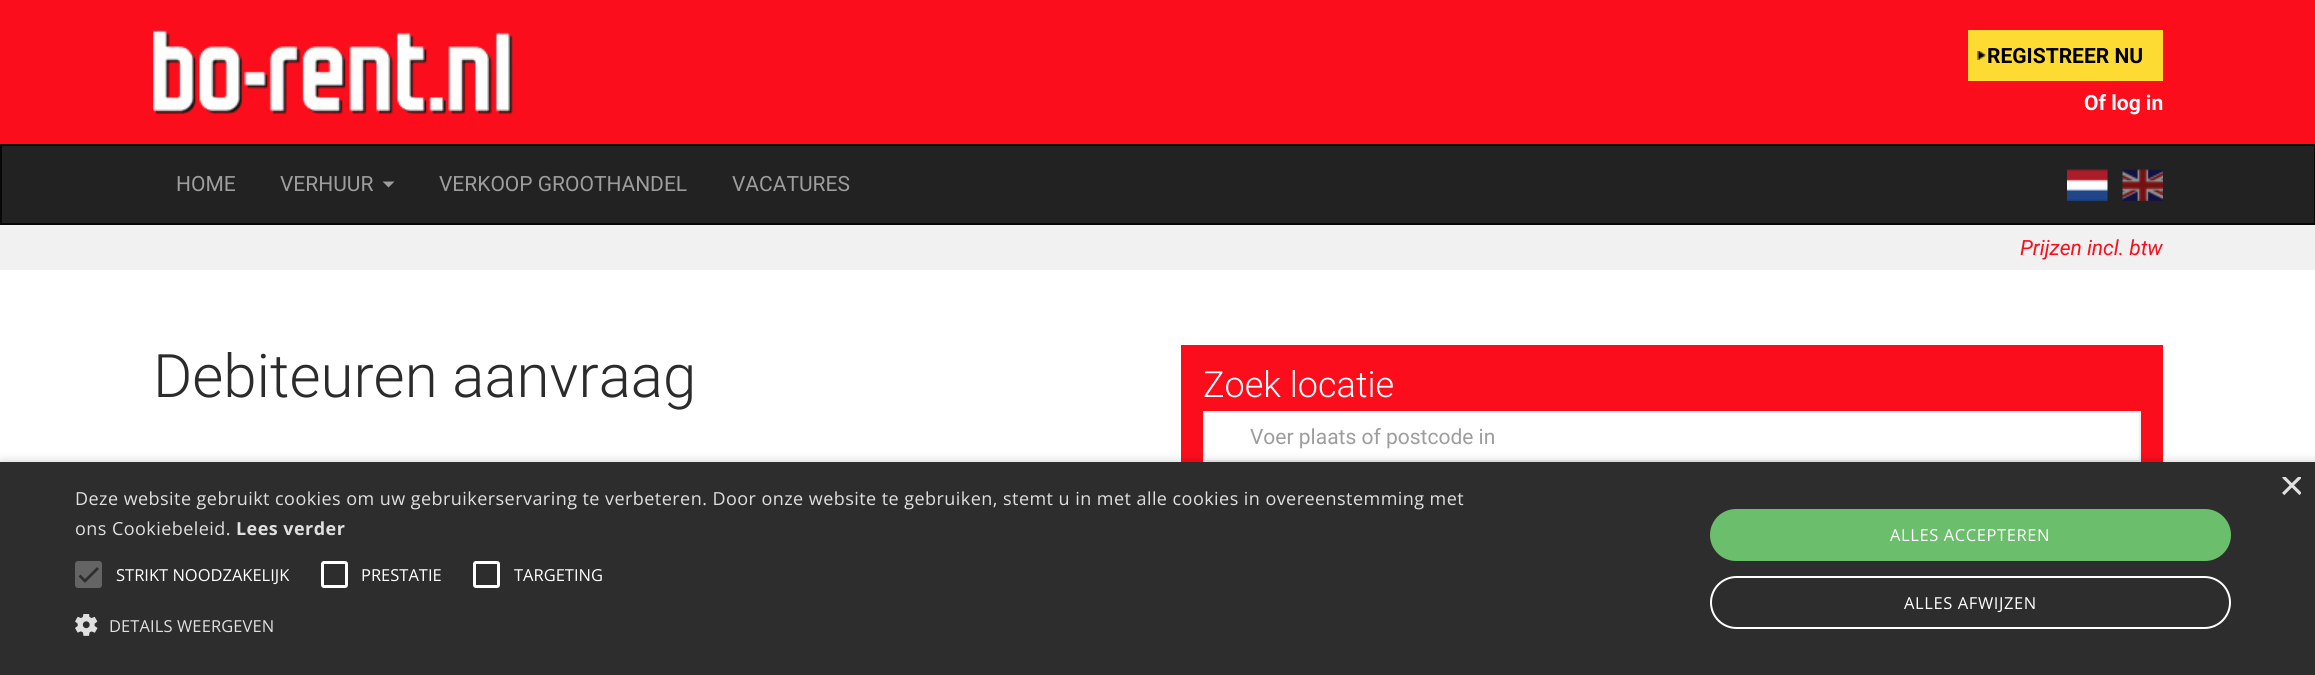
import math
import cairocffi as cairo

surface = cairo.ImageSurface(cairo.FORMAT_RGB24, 2315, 675)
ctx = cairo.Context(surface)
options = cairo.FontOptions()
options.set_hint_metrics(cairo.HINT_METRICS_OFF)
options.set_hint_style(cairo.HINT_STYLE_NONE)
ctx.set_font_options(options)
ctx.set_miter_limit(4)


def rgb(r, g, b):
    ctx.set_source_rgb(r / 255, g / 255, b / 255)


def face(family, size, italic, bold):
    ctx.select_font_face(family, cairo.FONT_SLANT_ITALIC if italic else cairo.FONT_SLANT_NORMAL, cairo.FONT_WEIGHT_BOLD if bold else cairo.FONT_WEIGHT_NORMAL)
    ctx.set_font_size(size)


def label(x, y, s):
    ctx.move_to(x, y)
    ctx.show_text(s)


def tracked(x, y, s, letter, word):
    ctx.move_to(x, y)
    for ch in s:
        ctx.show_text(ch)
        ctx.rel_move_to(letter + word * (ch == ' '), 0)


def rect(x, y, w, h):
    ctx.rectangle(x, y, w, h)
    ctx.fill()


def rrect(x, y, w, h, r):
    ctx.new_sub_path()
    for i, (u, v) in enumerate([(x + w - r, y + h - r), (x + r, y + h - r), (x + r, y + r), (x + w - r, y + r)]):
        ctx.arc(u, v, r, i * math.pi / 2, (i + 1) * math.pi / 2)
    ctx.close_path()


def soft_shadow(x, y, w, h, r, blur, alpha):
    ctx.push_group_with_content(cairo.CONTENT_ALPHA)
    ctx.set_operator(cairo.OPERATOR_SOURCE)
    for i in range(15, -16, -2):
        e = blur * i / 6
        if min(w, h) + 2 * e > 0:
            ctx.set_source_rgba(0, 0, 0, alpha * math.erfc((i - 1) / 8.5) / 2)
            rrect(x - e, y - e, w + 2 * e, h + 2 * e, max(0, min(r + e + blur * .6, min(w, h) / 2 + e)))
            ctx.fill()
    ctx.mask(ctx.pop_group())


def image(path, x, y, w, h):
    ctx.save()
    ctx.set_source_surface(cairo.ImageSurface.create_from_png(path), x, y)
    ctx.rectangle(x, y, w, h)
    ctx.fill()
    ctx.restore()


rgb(255, 255, 255)
ctx.paint()
rgb(252, 13, 28)
rect(0, 0, 2315, 144)
image('image0.png', 153, 30, 360, 84)
rgb(254, 219, 50)
rect(1968, 30, 195, 51)
image('image1.png', 1977, 51, 9, 9)
face('Roboto', 21, 0, 1)
rgb(0, 0, 0)
label(1987, 63, 'REGISTREER NU')
rgb(255, 255, 255)
label(2084, 110, 'Of log in')
rgb(34, 34, 34)
ctx.rectangle(1, 145, 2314, 79)
ctx.fill_preserve()
rgb(8, 8, 8)
ctx.stroke()
face('Roboto', 21, 0, 0)
rgb(157, 157, 157)
label(176, 191, 'HOME')
label(280, 191, 'VERHUUR')
ctx.new_path()
ctx.move_to(382.5, 181.5)
ctx.line_to(394.5, 181.5)
ctx.line_to(388.5, 187.5)
ctx.close_path()
ctx.fill()
label(439, 191, 'VERKOOP GROOTHANDEL')
label(732, 191, 'VACATURES')
image('image2.png', 2067, 169, 41, 32)
image('image3.png', 2122, 169, 41, 32)
rgb(241, 241, 241)
rect(0, 225, 2315, 45)
face('Roboto', 21, 1, 0)
rgb(252, 13, 28)
label(2020, 255, 'Prijzen incl. btw')
face('Roboto Light', 60, 0, 0)
rgb(43, 43, 43)
label(153, 397, 'Debiteuren aanvraag')
rgb(252, 13, 28)
rect(1181, 345, 982, 117)
face('Roboto Light', 36, 0, 0)
rgb(255, 255, 255)
label(1203, 397, 'Zoek locatie')
ctx.rectangle(1204, 412, 936, 49)
ctx.fill_preserve()
rgb(239, 239, 239)
ctx.stroke()
face('Roboto', 21, 0, 0)
rgb(157, 157, 157)
label(1250, 444, 'Voer plaats of postcode in')
rgb(0, 0, 0)
soft_shadow(2, 465, 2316, 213, 0, 6, 0.35)
rgb(45, 45, 45)
rect(0, 462, 2315, 213)
ctx.save()
ctx.rectangle(2279, 477, 22, 23)
ctx.clip()
face('Liberation Sans', 44, 0, 0)
rgb(224, 224, 224)
label(2279, 500, '×')
ctx.restore()
face('Open Sans', 18, 0, 0)
rgb(224, 224, 224)
tracked(75, 505, 'Deze website gebruikt cookies om uw gebruikerservaring te verbeteren. Door onze website te gebruiken, stemt u in met alle cookies in overeenstemming met', 0.45, 0)
tracked(75, 535, 'ons Cookiebeleid.', 0.45, 0)
face('Open Sans', 18, 0, 1)
tracked(236, 535, 'Lees verder', 0.45, 0)
rgb(100, 100, 100)
rrect(75, 561, 27, 27, 3)
ctx.fill()
ctx.new_path()
ctx.move_to(79.5, 575.5)
ctx.line_to(85, 581)
ctx.line_to(98, 568)
rgb(45, 45, 45)
ctx.set_line_width(2.7)
ctx.stroke()
face('Open Sans', 16.5, 0, 0)
rgb(255, 255, 255)
label(116, 581, 'STRIKT NOODZAKELIJK')
rrect(322.5, 562.5, 24, 24, 1.5)
ctx.set_line_width(3)
ctx.stroke()
label(361, 581, 'PRESTATIE')
rrect(474.5, 562.5, 24, 24, 1.5)
ctx.stroke()
label(514, 581, 'TARGETING')
image('image4.png', 75, 614, 23, 22)
rgb(224, 224, 224)
tracked(109, 632, 'DETAILS WEERGEVEN', 0.1, 0)
rgb(107, 190, 107)
rrect(1710, 509, 521, 52, 26)
ctx.fill()
rgb(255, 255, 255)
tracked(1890, 541, 'ALLES ACCEPTEREN', 0.6, 0)
rrect(1711, 577, 519, 51, 25.5)
ctx.set_line_width(2)
ctx.stroke()
tracked(1904, 609, 'ALLES AFWIJZEN', 0.6, 0)
surface.write_to_png('render.png')
